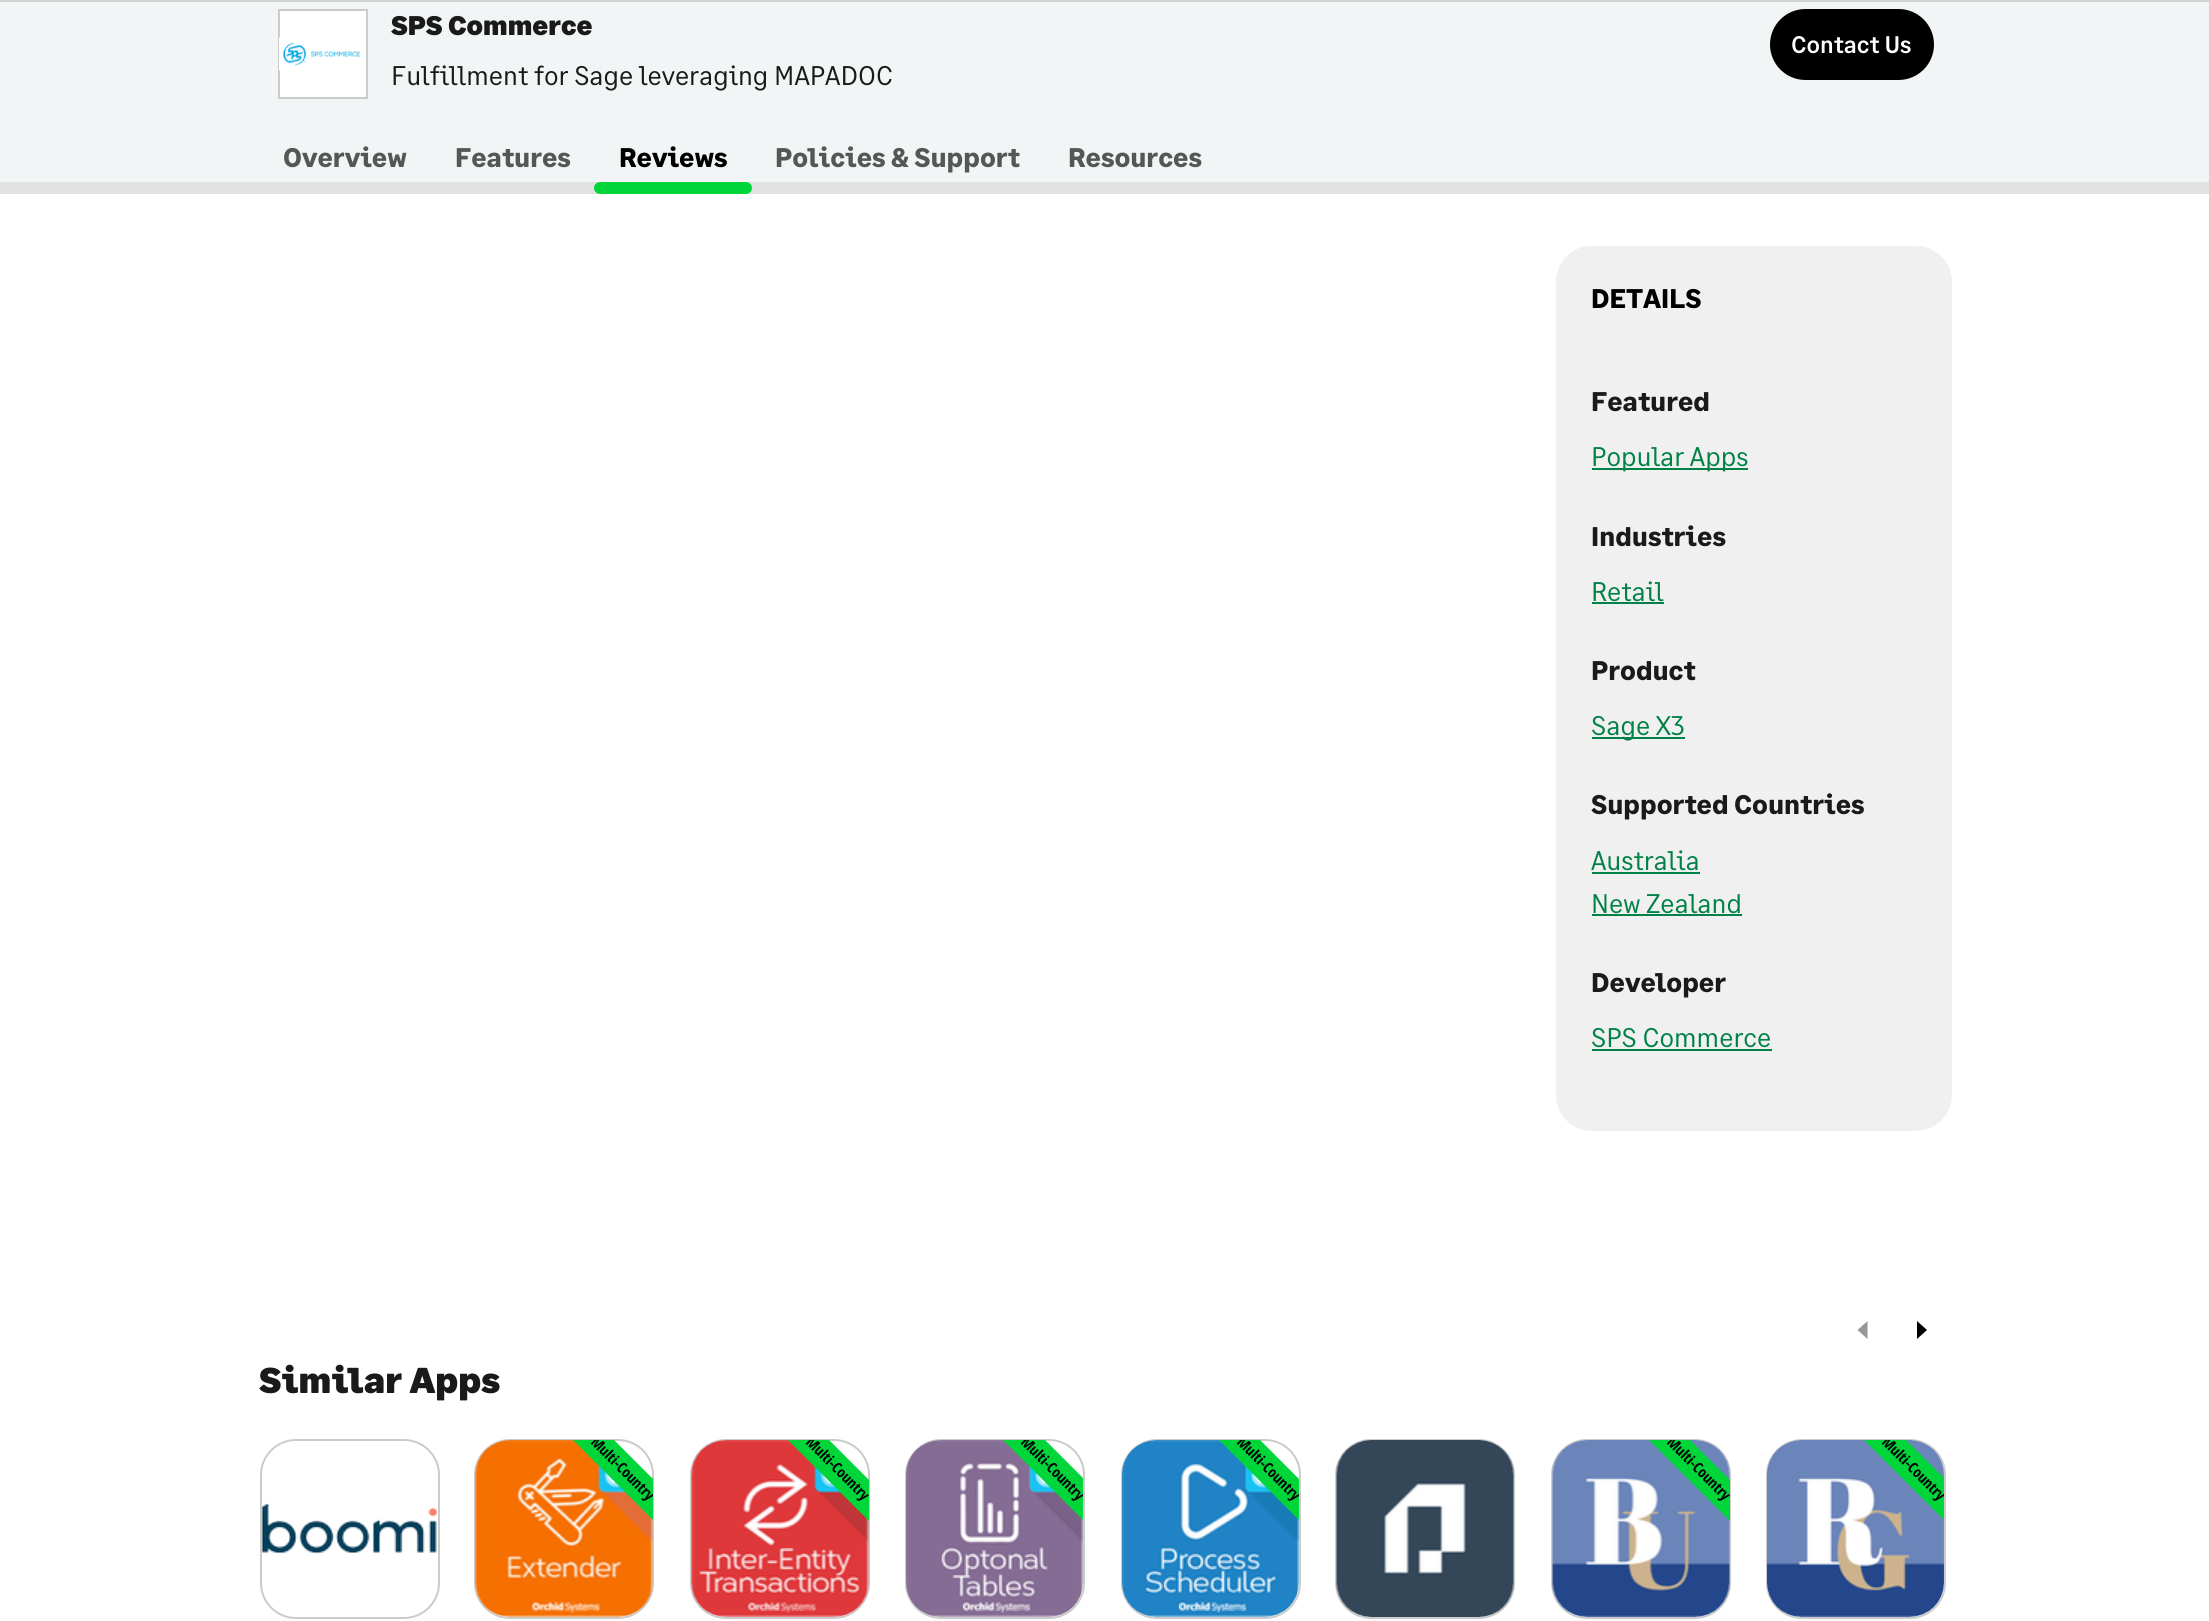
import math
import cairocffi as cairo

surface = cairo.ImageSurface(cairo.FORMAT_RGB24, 2209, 1621)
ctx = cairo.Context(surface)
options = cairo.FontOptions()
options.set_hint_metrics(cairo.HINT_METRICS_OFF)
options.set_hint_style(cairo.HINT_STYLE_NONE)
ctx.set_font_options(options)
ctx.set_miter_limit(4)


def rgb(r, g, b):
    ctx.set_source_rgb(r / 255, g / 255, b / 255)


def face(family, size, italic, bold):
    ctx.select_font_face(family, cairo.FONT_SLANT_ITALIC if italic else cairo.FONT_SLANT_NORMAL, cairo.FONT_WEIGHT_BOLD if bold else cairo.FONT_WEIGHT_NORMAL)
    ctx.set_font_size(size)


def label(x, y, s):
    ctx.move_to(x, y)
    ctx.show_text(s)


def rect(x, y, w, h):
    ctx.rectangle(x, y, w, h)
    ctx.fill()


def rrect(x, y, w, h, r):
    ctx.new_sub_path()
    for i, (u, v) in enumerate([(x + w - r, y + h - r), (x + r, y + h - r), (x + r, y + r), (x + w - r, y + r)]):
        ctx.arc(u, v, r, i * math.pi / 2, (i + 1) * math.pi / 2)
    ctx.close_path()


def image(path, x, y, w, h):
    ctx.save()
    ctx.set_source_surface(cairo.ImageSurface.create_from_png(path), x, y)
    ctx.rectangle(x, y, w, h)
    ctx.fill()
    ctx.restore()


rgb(255, 255, 255)
ctx.paint()
rgb(242, 245, 245)
rect(0, 2, 2209, 180)
rgb(226, 226, 226)
rect(0, 182, 2209, 12)
rgb(211, 211, 211)
rect(0, 0, 2209, 2)
rgb(255, 255, 255)
ctx.rectangle(279, 10, 88, 88)
ctx.fill_preserve()
rgb(203, 203, 203)
ctx.stroke()
image('image0.png', 279, 37, 85, 34)
face('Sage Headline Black', 27, 0, 0)
rgb(26, 26, 26)
label(391, 35, 'SPS Commerce')
face('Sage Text', 27, 0, 0)
label(391, 85, 'Fulfillment for Sage leveraging MAPADOC')
rgb(0, 0, 0)
rrect(1771.5, 10.5, 161, 68, 34)
ctx.fill_preserve()
ctx.set_line_width(3)
ctx.stroke()
face('Sage Text Medium', 24, 0, 0)
rgb(255, 255, 255)
label(1791, 53, 'Contact Us')
face('Sage Text', 27, 0, 1)
rgb(85, 86, 86)
label(283, 167, 'Overview')
label(455, 167, 'Features')
rgb(0, 0, 0)
label(619, 167, 'Reviews')
rgb(0, 214, 57)
rrect(594, 182, 158, 12, 6)
ctx.fill()
rgb(85, 86, 86)
label(775, 167, 'Policies & Support')
label(1068, 167, 'Resources')
rgb(240, 240, 240)
rrect(1556, 246, 396, 885, 36)
ctx.fill()
rrect(1556, 246, 396, 98, 36)
ctx.fill()
rgb(0, 0, 0)
label(1591, 308, 'DETAILS')
rgb(26, 26, 26)
label(1591, 411, 'Featured')
rgb(0, 129, 70)
rect(1592, 468, 156, 2)
face('Sage Text', 27, 0, 0)
label(1591, 466, 'Popular Apps')
face('Sage Text', 27, 0, 1)
rgb(26, 26, 26)
label(1591, 546, 'Industries')
face('Sage Text', 27, 0, 0)
rgb(0, 129, 70)
label(1591, 601, 'Retail')
rect(1592, 602, 72, 2)
face('Sage Text', 27, 0, 1)
rgb(26, 26, 26)
label(1591, 680, 'Product')
rgb(0, 129, 70)
rect(1592, 737, 93, 2)
face('Sage Text', 27, 0, 0)
label(1591, 735, 'Sage X3')
face('Sage Text', 27, 0, 1)
rgb(26, 26, 26)
label(1591, 814, 'Supported Countries')
face('Sage Text', 27, 0, 0)
rgb(0, 129, 70)
label(1591, 870, 'Australia')
rect(1592, 872, 108, 2)
label(1591, 913, 'New Zealand')
rect(1592, 914, 150, 2)
face('Sage Text', 27, 0, 1)
rgb(26, 26, 26)
label(1591, 992, 'Developer')
face('Sage Text', 27, 0, 0)
rgb(0, 129, 70)
label(1591, 1047, 'SPS Commerce')
rect(1592, 1049, 180, 2)
rgb(152, 152, 152)
ctx.new_path()
ctx.move_to(1857.5, 1330)
ctx.line_to(1867.5, 1321)
ctx.line_to(1867.5, 1339)
ctx.close_path()
ctx.fill()
rgb(0, 0, 0)
ctx.new_path()
ctx.move_to(1927, 1330)
ctx.line_to(1917, 1339)
ctx.line_to(1917, 1321)
ctx.close_path()
ctx.fill()
face('Sage Headline Black', 36, 0, 0)
rgb(26, 26, 26)
label(259, 1393, 'Similar Apps')
rrect(261, 1440, 178, 178, 35)
rgb(203, 203, 203)
ctx.set_line_width(2)
ctx.stroke()
image('image1.png', 261, 1503, 177, 51)
rrect(475, 1440, 178, 178, 35)
ctx.stroke()
image('image2.png', 475, 1440, 178, 177)
rgb(0, 214, 57)
ctx.new_path()
ctx.move_to(653, 1520)
ctx.line_to(573, 1440)
ctx.line_to(614, 1440)
ctx.line_to(653, 1479)
ctx.close_path()
ctx.fill()
ctx.save()
rrect(476, 1440, 177, 177, 35)
ctx.clip()
face('Open Sans Condensed', 15, 0, 1)
rgb(0, 0, 0)
ctx.save()
ctx.translate(590, 1443)
ctx.rotate(45 * math.pi / 180)
label(0, 0, 'Multi-Country')
ctx.restore()
ctx.restore()
rrect(691, 1440, 178, 178, 35)
rgb(203, 203, 203)
ctx.stroke()
image('image3.png', 691, 1440, 178, 177)
rgb(0, 214, 57)
ctx.new_path()
ctx.move_to(869, 1521)
ctx.line_to(788, 1440)
ctx.line_to(829, 1440)
ctx.line_to(869, 1480)
ctx.close_path()
ctx.fill()
ctx.save()
rrect(692, 1440, 177, 177, 35)
ctx.clip()
face('Open Sans Condensed', 15, 0, 1)
rgb(0, 0, 0)
ctx.save()
ctx.translate(805, 1443)
ctx.rotate(45 * math.pi / 180)
label(0, 0, 'Multi-Country')
ctx.restore()
ctx.restore()
rrect(906, 1440, 178, 178, 35)
rgb(203, 203, 203)
ctx.stroke()
image('image4.png', 906, 1440, 177, 177)
rgb(0, 214, 57)
ctx.new_path()
ctx.move_to(1083, 1520)
ctx.line_to(1003, 1440)
ctx.line_to(1045, 1440)
ctx.line_to(1083, 1478)
ctx.close_path()
ctx.fill()
ctx.save()
rrect(906, 1440, 177, 177, 35)
ctx.clip()
face('Open Sans Condensed', 15, 0, 1)
rgb(0, 0, 0)
ctx.save()
ctx.translate(1020, 1443)
ctx.rotate(45 * math.pi / 180)
label(0, 0, 'Multi-Country')
ctx.restore()
ctx.restore()
rrect(1122, 1440, 178, 178, 35)
rgb(203, 203, 203)
ctx.stroke()
image('image5.png', 1122, 1440, 177, 177)
rgb(0, 214, 57)
ctx.new_path()
ctx.move_to(1299, 1520)
ctx.line_to(1219, 1440)
ctx.line_to(1260, 1440)
ctx.line_to(1299, 1479)
ctx.close_path()
ctx.fill()
ctx.save()
rrect(1122, 1440, 177, 177, 35)
ctx.clip()
face('Open Sans Condensed', 15, 0, 1)
rgb(0, 0, 0)
ctx.save()
ctx.translate(1236, 1443)
ctx.rotate(45 * math.pi / 180)
label(0, 0, 'Multi-Country')
ctx.restore()
ctx.restore()
rrect(1336, 1440, 178, 178, 35)
rgb(203, 203, 203)
ctx.stroke()
image('image6.png', 1336, 1440, 178, 177)
rrect(1552, 1440, 178, 178, 35)
ctx.stroke()
image('image7.png', 1552, 1440, 178, 177)
rgb(0, 214, 57)
ctx.new_path()
ctx.move_to(1730, 1521)
ctx.line_to(1649, 1440)
ctx.line_to(1690, 1440)
ctx.line_to(1730, 1480)
ctx.close_path()
ctx.fill()
ctx.save()
rrect(1553, 1440, 177, 177, 35)
ctx.clip()
face('Open Sans Condensed', 15, 0, 1)
rgb(0, 0, 0)
ctx.save()
ctx.translate(1666, 1443)
ctx.rotate(45 * math.pi / 180)
label(0, 0, 'Multi-Country')
ctx.restore()
ctx.restore()
rrect(1767, 1440, 178, 178, 35)
rgb(203, 203, 203)
ctx.stroke()
image('image8.png', 1767, 1440, 177, 177)
rgb(0, 214, 57)
ctx.new_path()
ctx.move_to(1944, 1520)
ctx.line_to(1864, 1440)
ctx.line_to(1906, 1440)
ctx.line_to(1944, 1478)
ctx.close_path()
ctx.fill()
ctx.save()
rrect(1767, 1440, 177, 177, 35)
ctx.clip()
face('Open Sans Condensed', 15, 0, 1)
rgb(0, 0, 0)
ctx.save()
ctx.translate(1881, 1443)
ctx.rotate(45 * math.pi / 180)
label(0, 0, 'Multi-Country')
ctx.restore()
ctx.restore()
surface.write_to_png('render.png')
